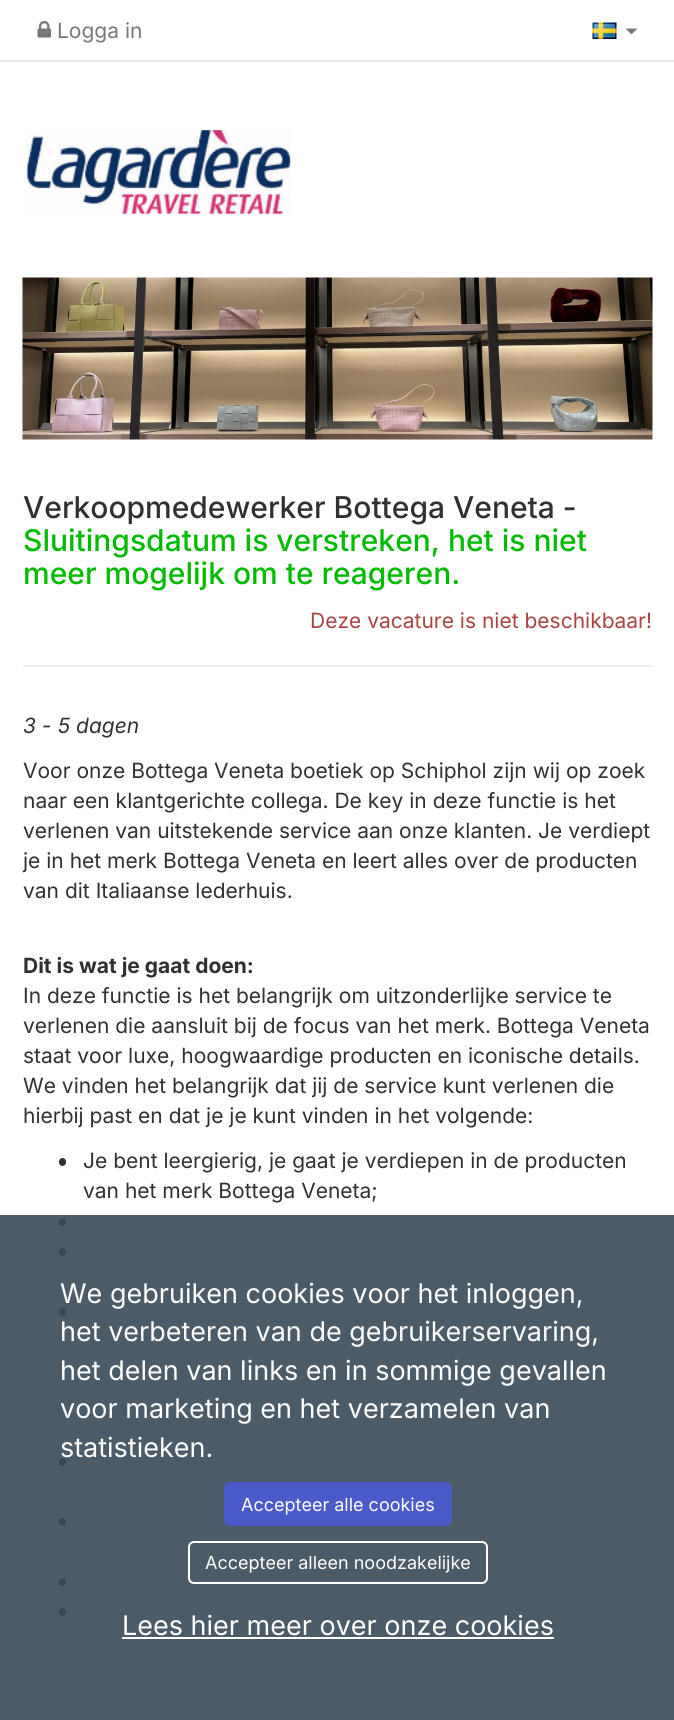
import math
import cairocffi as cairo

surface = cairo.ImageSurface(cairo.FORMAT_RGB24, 674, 1720)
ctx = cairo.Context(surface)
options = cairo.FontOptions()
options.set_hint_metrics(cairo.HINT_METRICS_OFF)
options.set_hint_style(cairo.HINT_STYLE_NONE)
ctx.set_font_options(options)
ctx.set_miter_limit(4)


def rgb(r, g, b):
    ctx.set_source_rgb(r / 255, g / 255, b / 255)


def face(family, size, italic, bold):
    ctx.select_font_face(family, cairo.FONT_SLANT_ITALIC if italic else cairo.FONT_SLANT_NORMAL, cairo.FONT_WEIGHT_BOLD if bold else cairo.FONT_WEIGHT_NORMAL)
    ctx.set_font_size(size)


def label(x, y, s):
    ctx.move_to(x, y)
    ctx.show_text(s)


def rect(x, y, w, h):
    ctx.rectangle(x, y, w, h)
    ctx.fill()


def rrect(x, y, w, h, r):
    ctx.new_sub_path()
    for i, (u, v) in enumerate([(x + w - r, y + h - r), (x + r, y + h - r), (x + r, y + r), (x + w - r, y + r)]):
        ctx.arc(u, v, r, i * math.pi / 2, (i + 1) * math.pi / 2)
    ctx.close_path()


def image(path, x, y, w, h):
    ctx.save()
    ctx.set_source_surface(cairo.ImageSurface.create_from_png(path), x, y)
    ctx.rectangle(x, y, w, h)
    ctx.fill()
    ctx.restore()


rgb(255, 255, 255)
ctx.paint()
rgb(231, 231, 231)
rect(0, 60, 674, 2)
image('image0.png', 37, 21, 14, 17)
face('Inter', 21, 0, 0)
rgb(119, 119, 119)
label(57, 38, 'Logga in')
image('image1.png', 592, 22, 25, 17)
ctx.new_path()
ctx.move_to(625.5, 28.5)
ctx.line_to(637.5, 28.5)
ctx.line_to(631.5, 34.5)
ctx.close_path()
ctx.fill()
image('image2.png', 26, 130, 265, 84)
image('image3.png', 22, 277, 631, 163)
rgb(238, 238, 238)
rect(23, 665, 630, 2)
face('Inter Medium', 30, 0, 0)
rgb(47, 48, 48)
label(23, 518, 'Verkoopmedewerker Bottega Veneta -')
rgb(0, 187, 0)
label(23, 551, 'Sluitingsdatum is verstreken, het is niet')
label(23, 584, 'meer mogelijk om te reageren.')
face('Inter', 21, 0, 0)
rgb(169, 68, 66)
label(310, 628, 'Deze vacature is niet beschikbaar!')
face('Inter', 21, 1, 0)
rgb(47, 48, 48)
label(23, 733, '3 - 5 dagen')
face('Inter', 21, 0, 0)
label(23, 778, 'Voor onze Bottega Veneta boetiek op Schiphol zijn wij op zoek')
label(23, 808, 'naar een klantgerichte collega. De key in deze functie is het')
label(23, 838, 'verlenen van uitstekende service aan onze klanten. Je verdiept')
label(23, 868, 'je in het merk Bottega Veneta en leert alles over de producten')
label(23, 898, 'van dit Italiaanse lederhuis.')
face('Inter', 21, 0, 1)
label(23, 973, 'Dit is wat je gaat doen:')
face('Inter', 21, 0, 0)
label(23, 1003, 'In deze functie is het belangrijk om uitzonderlijke service te')
label(23, 1033, 'verlenen die aansluit bij de focus van het merk. Bottega Veneta')
label(23, 1063, 'staat voor luxe, hoogwaardige producten en iconische details.')
label(23, 1093, 'We vinden het belangrijk dat jij de service kunt verlenen die')
label(23, 1123, 'hierbij past en dat je je kunt vinden in het volgende:')
rrect(59, 1158, 7, 8, 3.5)
ctx.fill()
label(83, 1168, 'Je bent leergierig, je gaat je verdiepen in de producten')
label(83, 1198, 'van het merk Bottega Veneta;')
rrect(59, 1218, 7, 8, 3.5)
ctx.fill()
rrect(59, 1248, 7, 8, 3.5)
ctx.fill()
rrect(59, 1308, 7, 8, 3.5)
ctx.fill()
rrect(59, 1458, 7, 8, 3.5)
ctx.fill()
rrect(59, 1518, 7, 8, 3.5)
ctx.fill()
rrect(59, 1578, 7, 8, 3.5)
ctx.fill()
rrect(59, 1608, 7, 8, 3.5)
ctx.fill()
ctx.set_source_rgba(0.22, 0.29, 0.341, 0.9)
rect(0, 1215, 674, 505)
face('Inter', 27, 0, 0)
rgb(255, 255, 255)
label(60, 1303, 'We gebruiken cookies voor het inloggen,')
label(60, 1341, 'het verbeteren van de gebruikerservaring,')
label(60, 1380, 'het delen van links en in sommige gevallen')
label(60, 1418, 'voor marketing en het verzamelen van')
label(60, 1457, 'statistieken.')
rgb(74, 91, 201)
rrect(225, 1483, 226, 42, 5)
ctx.fill_preserve()
ctx.stroke()
face('Inter', 18, 0, 0)
rgb(255, 255, 255)
label(241, 1511, 'Accepteer alle cookies')
rrect(189, 1542, 298, 41, 5)
ctx.stroke()
label(205, 1569, 'Accepteer alleen noodzakelijke')
face('Inter', 27, 0, 0)
label(122, 1635, 'Lees hier meer over onze cookies')
rect(122, 1637, 432, 2)
surface.write_to_png('render.png')
